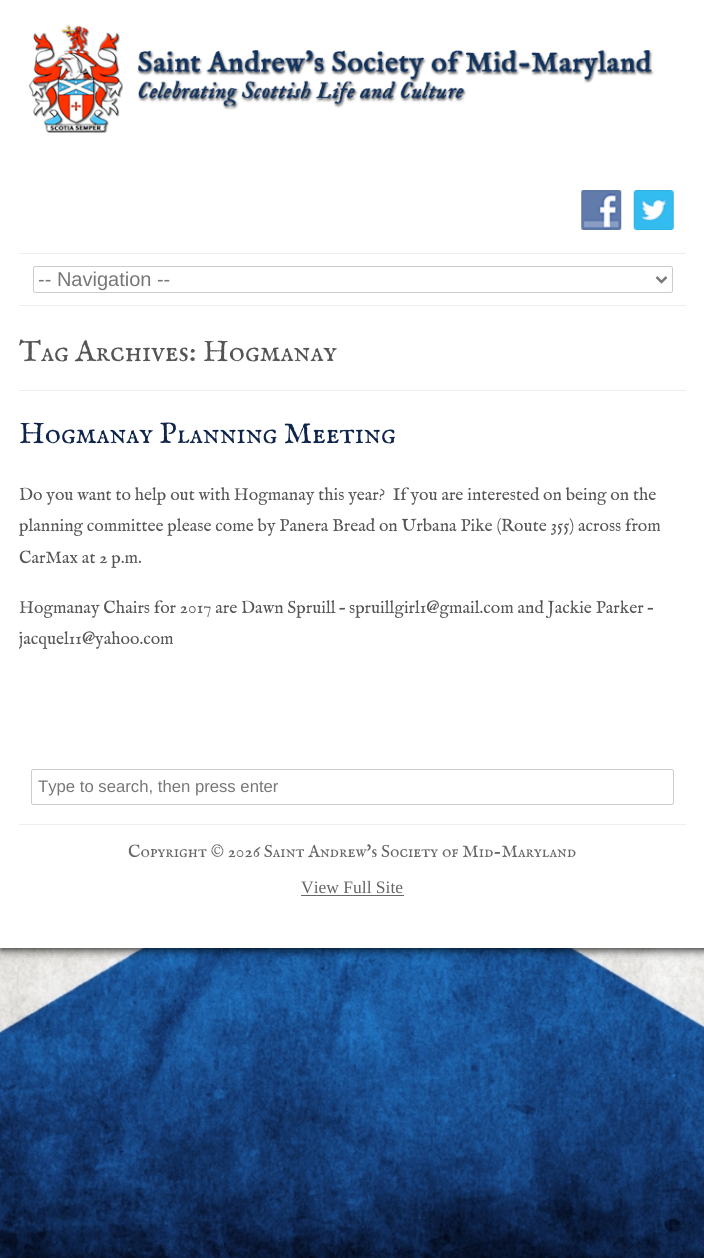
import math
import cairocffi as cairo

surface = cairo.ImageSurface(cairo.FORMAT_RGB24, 704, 1258)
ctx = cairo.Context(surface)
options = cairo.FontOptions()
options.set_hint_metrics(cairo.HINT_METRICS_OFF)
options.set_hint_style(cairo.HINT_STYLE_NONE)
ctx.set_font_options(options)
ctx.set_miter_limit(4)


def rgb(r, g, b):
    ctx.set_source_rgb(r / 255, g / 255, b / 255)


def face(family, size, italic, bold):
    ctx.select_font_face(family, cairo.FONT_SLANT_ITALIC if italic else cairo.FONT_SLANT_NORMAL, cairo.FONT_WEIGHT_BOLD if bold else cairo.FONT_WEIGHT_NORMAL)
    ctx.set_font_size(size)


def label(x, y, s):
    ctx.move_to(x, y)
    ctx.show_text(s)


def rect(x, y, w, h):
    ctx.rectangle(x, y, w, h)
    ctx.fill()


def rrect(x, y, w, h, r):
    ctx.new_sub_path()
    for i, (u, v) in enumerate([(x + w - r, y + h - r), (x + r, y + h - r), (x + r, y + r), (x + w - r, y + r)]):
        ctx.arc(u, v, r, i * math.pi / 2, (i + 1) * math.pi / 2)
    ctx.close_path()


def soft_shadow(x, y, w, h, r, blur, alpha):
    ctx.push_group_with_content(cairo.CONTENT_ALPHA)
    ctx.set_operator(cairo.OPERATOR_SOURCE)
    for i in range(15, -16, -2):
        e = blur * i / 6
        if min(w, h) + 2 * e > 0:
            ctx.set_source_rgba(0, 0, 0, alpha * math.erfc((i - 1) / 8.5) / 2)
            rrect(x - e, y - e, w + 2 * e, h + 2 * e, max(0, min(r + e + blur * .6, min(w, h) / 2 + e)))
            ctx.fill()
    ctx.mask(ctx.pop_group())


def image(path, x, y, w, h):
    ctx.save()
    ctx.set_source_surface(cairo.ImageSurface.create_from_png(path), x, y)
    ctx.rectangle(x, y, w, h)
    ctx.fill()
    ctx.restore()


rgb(255, 255, 255)
ctx.paint()
image('image0.png', 0, 948, 704, 310)
rgb(0, 0, 0)
soft_shadow(1, 1, 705, 948, 0, 5, 1)
rgb(255, 255, 255)
rect(0, 0, 704, 948)
image('image1.png', 28, 24, 626, 109)
image('image2.png', 581, 190, 41, 40)
image('image3.png', 633, 190, 41, 40)
rgb(238, 238, 238)
rect(19, 253, 667, 1)
rect(19, 305, 667, 1)
rrect(33.5, 266.5, 639, 26, 2)
rgb(204, 204, 204)
ctx.set_line_width(1)
ctx.stroke()
ctx.new_path()
ctx.move_to(656.5, 277)
ctx.line_to(661.5, 282)
ctx.line_to(666.5, 277)
rgb(119, 119, 119)
ctx.set_line_width(2.5)
ctx.stroke()
face('Liberation Sans', 20, 0, 0)
label(38, 286, '-- Navigation --')
rgb(238, 238, 238)
rect(19, 390, 667, 1)
face('IM FELL English SC', 30, 0, 0)
rgb(85, 85, 85)
label(19, 361, 'Tag Archives: Hogmanay')
rgb(14, 36, 75)
label(19, 443, 'Hogmanay Planning Meeting')
face('IM FELL English', 17.5, 0, 0)
rgb(85, 85, 85)
label(19, 500, 'Do you want to help out with Hogmanay this year?  If you are interested on being on the')
label(19, 531, 'planning committee please come by Panera Bread on Urbana Pike (Route 355) across from')
label(19, 563, 'CarMax at 2 p.m.')
label(19, 613, 'Hogmanay Chairs for 2017 are Dawn Spruill – spruillgirl1@gmail.com and Jackie Parker –')
ctx.save()
ctx.rectangle(19, 319, 667, 412)
ctx.clip()
label(19, 644, 'jacquel11@yahoo.com')
ctx.restore()
rrect(31.5, 769.5, 642, 35, 2)
rgb(204, 204, 204)
ctx.set_line_width(1)
ctx.stroke()
face('Liberation Sans', 16.7, 0, 0)
rgb(119, 119, 119)
label(38, 792, 'Type to search, then press enter')
rgb(238, 238, 238)
rect(19, 824, 667, 1)
face('IM FELL English SC', 17.5, 0, 0)
rgb(102, 102, 102)
label(128, 857, 'Copyright © 2026 Saint Andrew\'s Society of Mid-Maryland')
face('Liberation Serif', 17.5, 0, 0)
label(301, 893, 'View Full Site')
rect(301, 895, 103, 1)
surface.write_to_png('render.png')
